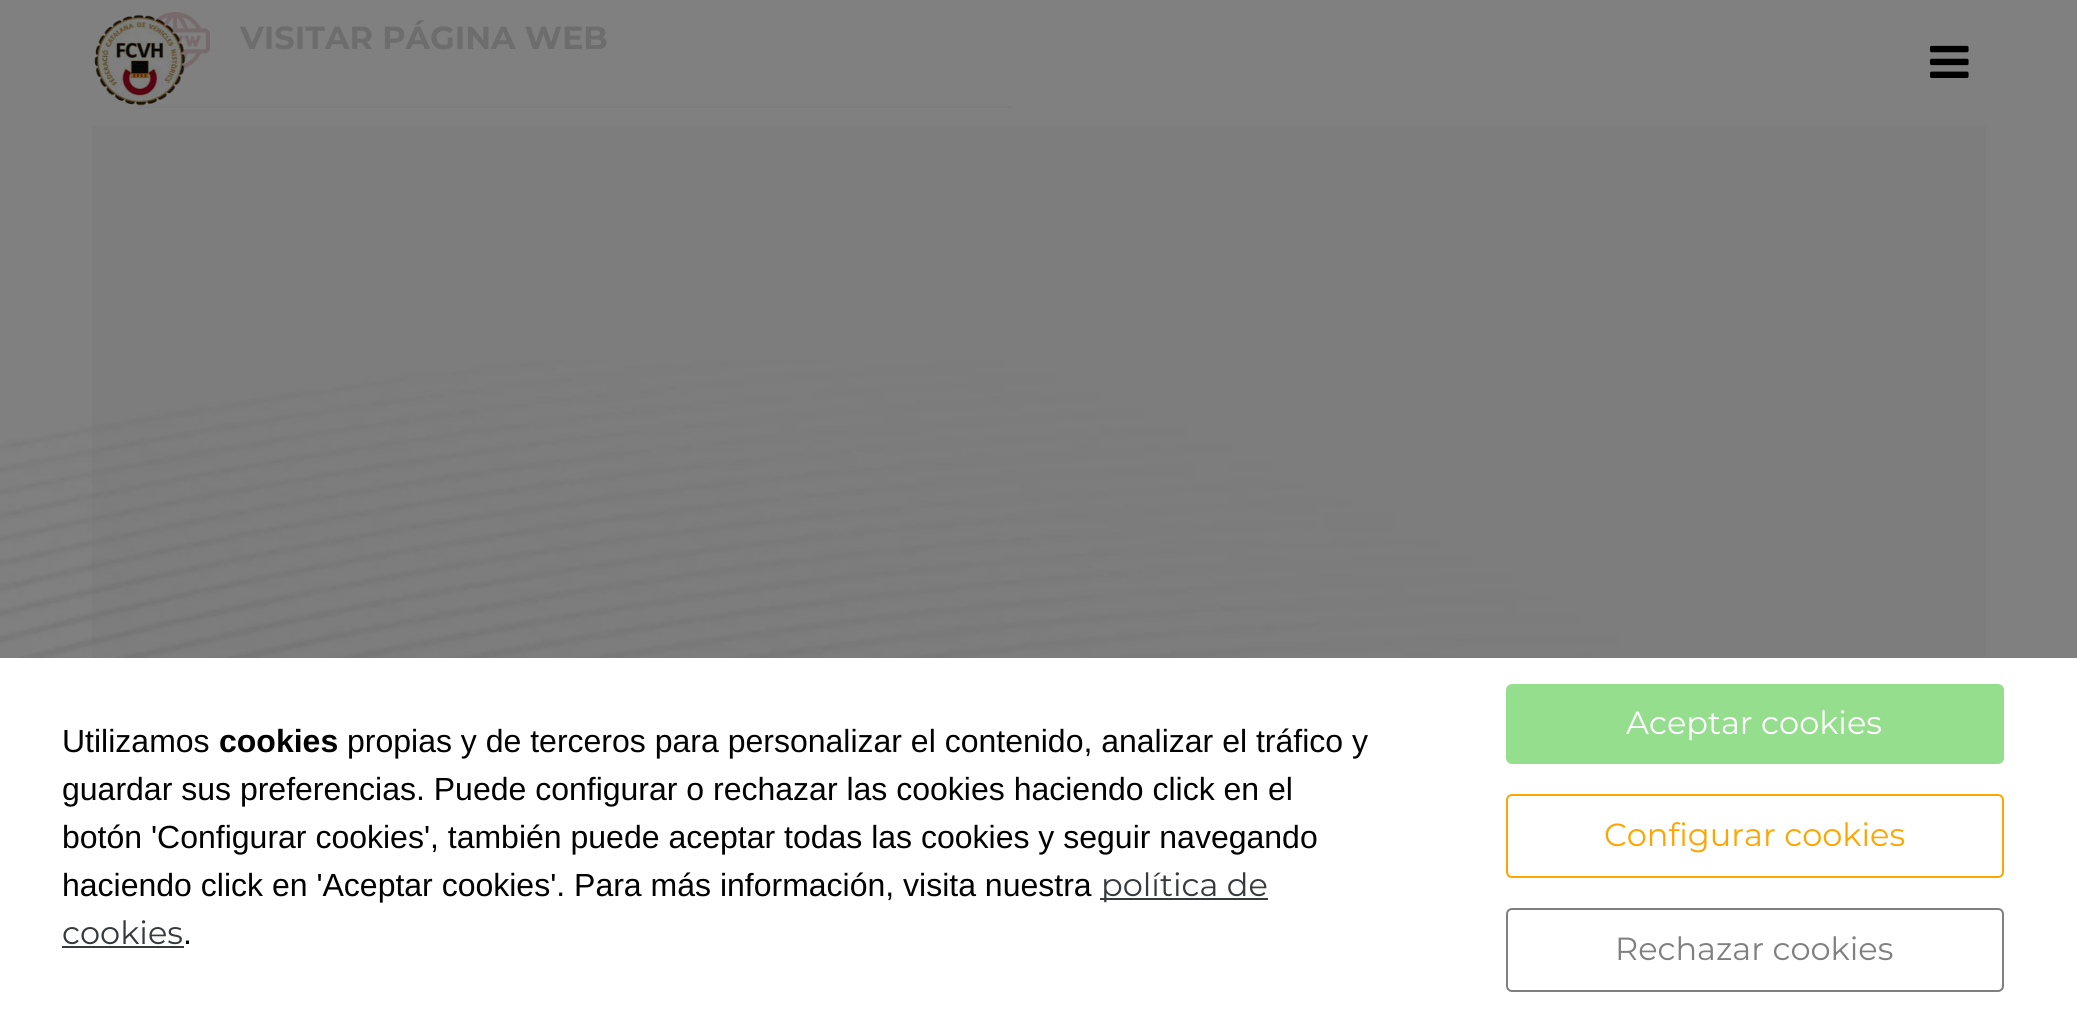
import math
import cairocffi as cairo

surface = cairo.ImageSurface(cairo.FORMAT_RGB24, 2077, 1017)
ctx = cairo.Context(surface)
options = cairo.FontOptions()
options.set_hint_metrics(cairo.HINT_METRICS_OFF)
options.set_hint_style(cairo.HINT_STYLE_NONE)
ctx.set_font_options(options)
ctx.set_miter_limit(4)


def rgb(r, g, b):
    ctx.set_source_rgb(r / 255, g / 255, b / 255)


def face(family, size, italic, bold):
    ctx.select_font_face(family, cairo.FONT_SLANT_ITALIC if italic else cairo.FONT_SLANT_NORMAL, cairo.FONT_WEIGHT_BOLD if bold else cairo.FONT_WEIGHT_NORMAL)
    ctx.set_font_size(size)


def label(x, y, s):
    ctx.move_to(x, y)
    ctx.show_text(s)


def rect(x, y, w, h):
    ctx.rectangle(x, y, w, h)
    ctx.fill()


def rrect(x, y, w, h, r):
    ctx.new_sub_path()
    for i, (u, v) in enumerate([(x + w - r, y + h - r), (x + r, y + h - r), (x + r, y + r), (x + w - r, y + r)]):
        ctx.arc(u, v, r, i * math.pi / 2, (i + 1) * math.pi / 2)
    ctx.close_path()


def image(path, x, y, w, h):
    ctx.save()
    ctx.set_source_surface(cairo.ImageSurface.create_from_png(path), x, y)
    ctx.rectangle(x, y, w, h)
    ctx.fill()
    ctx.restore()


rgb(128, 128, 128)
ctx.paint()
rgb(125, 125, 125)
rect(92, 126, 1894, 532)
image('image0.png', 0, 360, 1733, 298)
image('image3.png', 154, 12, 56, 57)
image('image1.png', 94, 14, 92, 92)
image('image2.png', 1930, 45, 39, 33)
rect(140, 106, 872, 2)
face('Montserrat', 32, 0, 1)
rgb(109, 109, 109)
label(240, 49, 'VISITAR PÁGINA WEB')
rgb(255, 255, 255)
rect(0, 658, 2077, 359)
face('Liberation Sans', 32, 0, 0)
rgb(0, 0, 0)
label(62, 752, 'Utilizamos')
face('Liberation Sans', 32, 0, 1)
label(219, 752, 'cookies')
face('Liberation Sans', 32, 0, 0)
label(347, 752, 'propias y de terceros para personalizar el contenido, analizar el tráfico y')
label(62, 800, 'guardar sus preferencias. Puede configurar o rechazar las cookies haciendo click en el')
label(62, 848, 'botón \'Configurar cookies\', también puede aceptar todas las cookies y seguir navegando')
label(62, 896, 'haciendo click en \'Aceptar cookies\'. Para más información, visita nuestra')
rgb(55, 58, 60)
rect(1100, 898, 168, 2)
face('Montserrat', 32, 0, 0)
label(1101, 896, 'política de')
label(62, 944, 'cookies')
rect(62, 946, 122, 2)
face('Liberation Sans', 32, 0, 0)
rgb(0, 0, 0)
label(183, 944, '.')
rgb(149, 222, 142)
rrect(1506, 684, 498, 80, 6)
ctx.fill()
face('Montserrat', 32, 0, 0)
rgb(255, 255, 255)
label(1626, 734, 'Aceptar cookies')
rrect(1507, 795, 496, 82, 5)
rgb(255, 165, 0)
ctx.stroke()
label(1604, 846, 'Configurar cookies')
rrect(1507, 909, 496, 82, 5)
rgb(128, 128, 128)
ctx.stroke()
label(1615, 960, 'Rechazar cookies')
surface.write_to_png('render.png')
